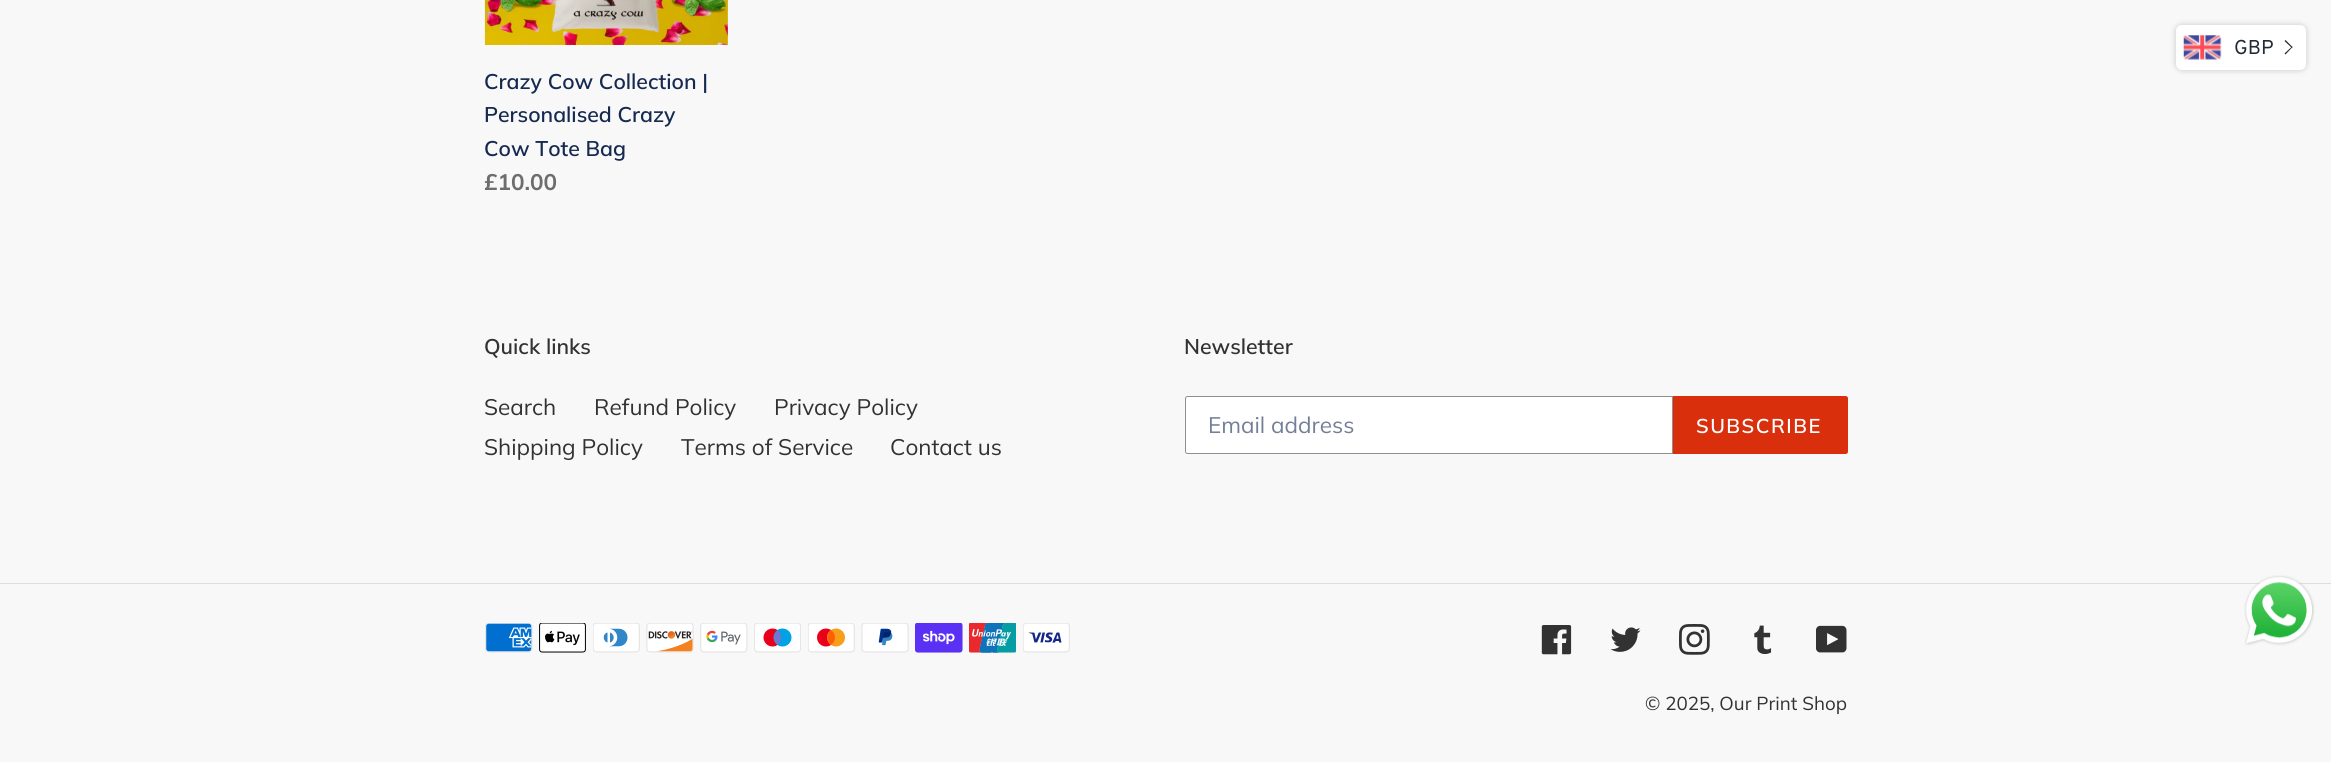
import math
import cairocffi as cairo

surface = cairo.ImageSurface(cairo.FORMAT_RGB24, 2331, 762)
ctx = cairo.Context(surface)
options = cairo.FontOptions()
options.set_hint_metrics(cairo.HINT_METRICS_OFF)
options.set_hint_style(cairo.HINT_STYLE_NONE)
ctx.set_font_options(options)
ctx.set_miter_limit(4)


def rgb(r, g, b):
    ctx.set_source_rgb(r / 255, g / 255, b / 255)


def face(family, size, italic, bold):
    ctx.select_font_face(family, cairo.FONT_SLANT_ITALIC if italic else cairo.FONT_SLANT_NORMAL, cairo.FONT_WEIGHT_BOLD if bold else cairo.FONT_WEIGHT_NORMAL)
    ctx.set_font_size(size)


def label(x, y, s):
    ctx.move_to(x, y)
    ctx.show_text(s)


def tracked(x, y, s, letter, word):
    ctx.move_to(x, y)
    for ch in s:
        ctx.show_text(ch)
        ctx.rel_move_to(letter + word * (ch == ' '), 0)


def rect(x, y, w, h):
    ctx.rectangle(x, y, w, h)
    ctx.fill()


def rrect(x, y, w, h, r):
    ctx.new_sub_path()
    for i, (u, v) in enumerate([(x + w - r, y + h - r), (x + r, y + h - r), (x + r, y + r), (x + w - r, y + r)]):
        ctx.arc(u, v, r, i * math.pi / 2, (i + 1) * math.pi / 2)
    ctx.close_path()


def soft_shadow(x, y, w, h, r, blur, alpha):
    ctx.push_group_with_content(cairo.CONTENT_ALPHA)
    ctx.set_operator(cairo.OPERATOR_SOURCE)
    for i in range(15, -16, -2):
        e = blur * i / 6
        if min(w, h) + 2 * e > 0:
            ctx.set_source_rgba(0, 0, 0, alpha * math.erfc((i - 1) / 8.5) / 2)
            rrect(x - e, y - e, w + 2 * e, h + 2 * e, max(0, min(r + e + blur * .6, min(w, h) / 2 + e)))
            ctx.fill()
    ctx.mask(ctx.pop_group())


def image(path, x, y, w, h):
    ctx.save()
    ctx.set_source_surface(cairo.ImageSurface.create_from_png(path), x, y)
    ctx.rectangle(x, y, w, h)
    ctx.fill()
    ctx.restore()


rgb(248, 248, 248)
ctx.paint()
rgb(33, 43, 54)
soft_shadow(2176, 25, 130, 45, 6, 3, 0.25)
rgb(255, 255, 255)
rrect(2176, 25, 130, 45, 6)
ctx.fill()
image('image0.png', 2183, 35, 39, 25)
face('Overpass', 20, 0, 0)
rgb(33, 43, 54)
label(2234, 54, 'GBP')
ctx.new_path()
ctx.move_to(2284.5, 41)
ctx.line_to(2285.5, 40)
ctx.line_to(2292.5, 47)
ctx.line_to(2292, 48)
ctx.close_path()
ctx.fill()
ctx.new_path()
ctx.move_to(2284.5, 53.5)
ctx.line_to(2292, 46.5)
ctx.line_to(2292.5, 47)
ctx.line_to(2285.5, 54.5)
ctx.close_path()
ctx.fill()
image('image1.png', 484, 0, 244, 45)
face('Muli SemiBold', 21.25, 0, 0)
rgb(22, 41, 80)
label(484, 89, 'Crazy Cow Collection |')
label(484, 122, 'Personalised Crazy')
label(484, 156, 'Cow Tote Bag')
face('Muli', 22.5, 0, 1)
rgb(109, 109, 109)
label(484, 190, '£10.00')
face('Muli SemiBold', 21.25, 0, 0)
rgb(51, 50, 50)
label(484, 354, 'Quick links')
face('Muli', 22.5, 0, 0)
label(484, 415, 'Search')
label(594, 415, 'Refund Policy')
label(774, 415, 'Privacy Policy')
label(484, 455, 'Shipping Policy')
label(681, 455, 'Terms of Service')
label(890, 455, 'Contact us')
face('Muli SemiBold', 21.25, 0, 0)
label(1184, 354, 'Newsletter')
rgb(255, 255, 255)
ctx.new_path()
ctx.move_to(1187.5, 396.5)
ctx.line_to(1672.5, 396.5)
ctx.line_to(1672.5, 453.5)
ctx.line_to(1187.5, 453.5)
ctx.curve_to(1186.5, 453.5, 1185.5, 452.5, 1185.5, 451.5)
ctx.line_to(1185.5, 398.5)
ctx.curve_to(1185.5, 397.5, 1186.5, 396.5, 1187.5, 396.5)
ctx.close_path()
ctx.fill_preserve()
rgb(144, 144, 144)
ctx.set_line_width(1)
ctx.stroke()
face('Muli', 22.5, 0, 0)
rgb(115, 127, 150)
label(1208, 433, 'Email address')
rgb(218, 47, 12)
ctx.new_path()
ctx.move_to(1673, 396)
ctx.line_to(1845.5, 396)
ctx.curve_to(1847, 396, 1848, 397, 1848, 398.5)
ctx.line_to(1848, 451.5)
ctx.curve_to(1848, 453, 1847, 454, 1845.5, 454)
ctx.line_to(1673, 454)
ctx.close_path()
ctx.fill()
face('Muli SemiBold', 20, 0, 0)
rgb(255, 255, 255)
tracked(1696, 433, 'SUBSCRIBE', 1.5, 0)
rgb(221, 221, 221)
rect(0, 583, 2331, 1)
image('image2.png', 485, 623, 48, 30)
image('image3.png', 539, 623, 47, 30)
image('image4.png', 593, 623, 47, 30)
image('image5.png', 646, 623, 48, 30)
image('image6.png', 700, 623, 48, 30)
image('image7.png', 754, 623, 47, 30)
image('image8.png', 808, 623, 47, 30)
image('image9.png', 861, 623, 48, 30)
image('image10.png', 915, 623, 48, 30)
image('image11.png', 969, 623, 47, 30)
image('image12.png', 1023, 623, 47, 30)
image('image13.png', 1541, 625, 31, 30)
image('image14.png', 1610, 627, 31, 25)
image('image15.png', 1679, 624, 31, 31)
image('image16.png', 1754, 625, 18, 29)
image('image17.png', 1816, 625, 31, 28)
face('Muli', 18.75, 0, 0)
rgb(51, 50, 50)
label(1645, 710, '© 2025, Our Print Shop')
image('image18.png', 2244, 575, 71, 71)
surface.write_to_png('render.png')
